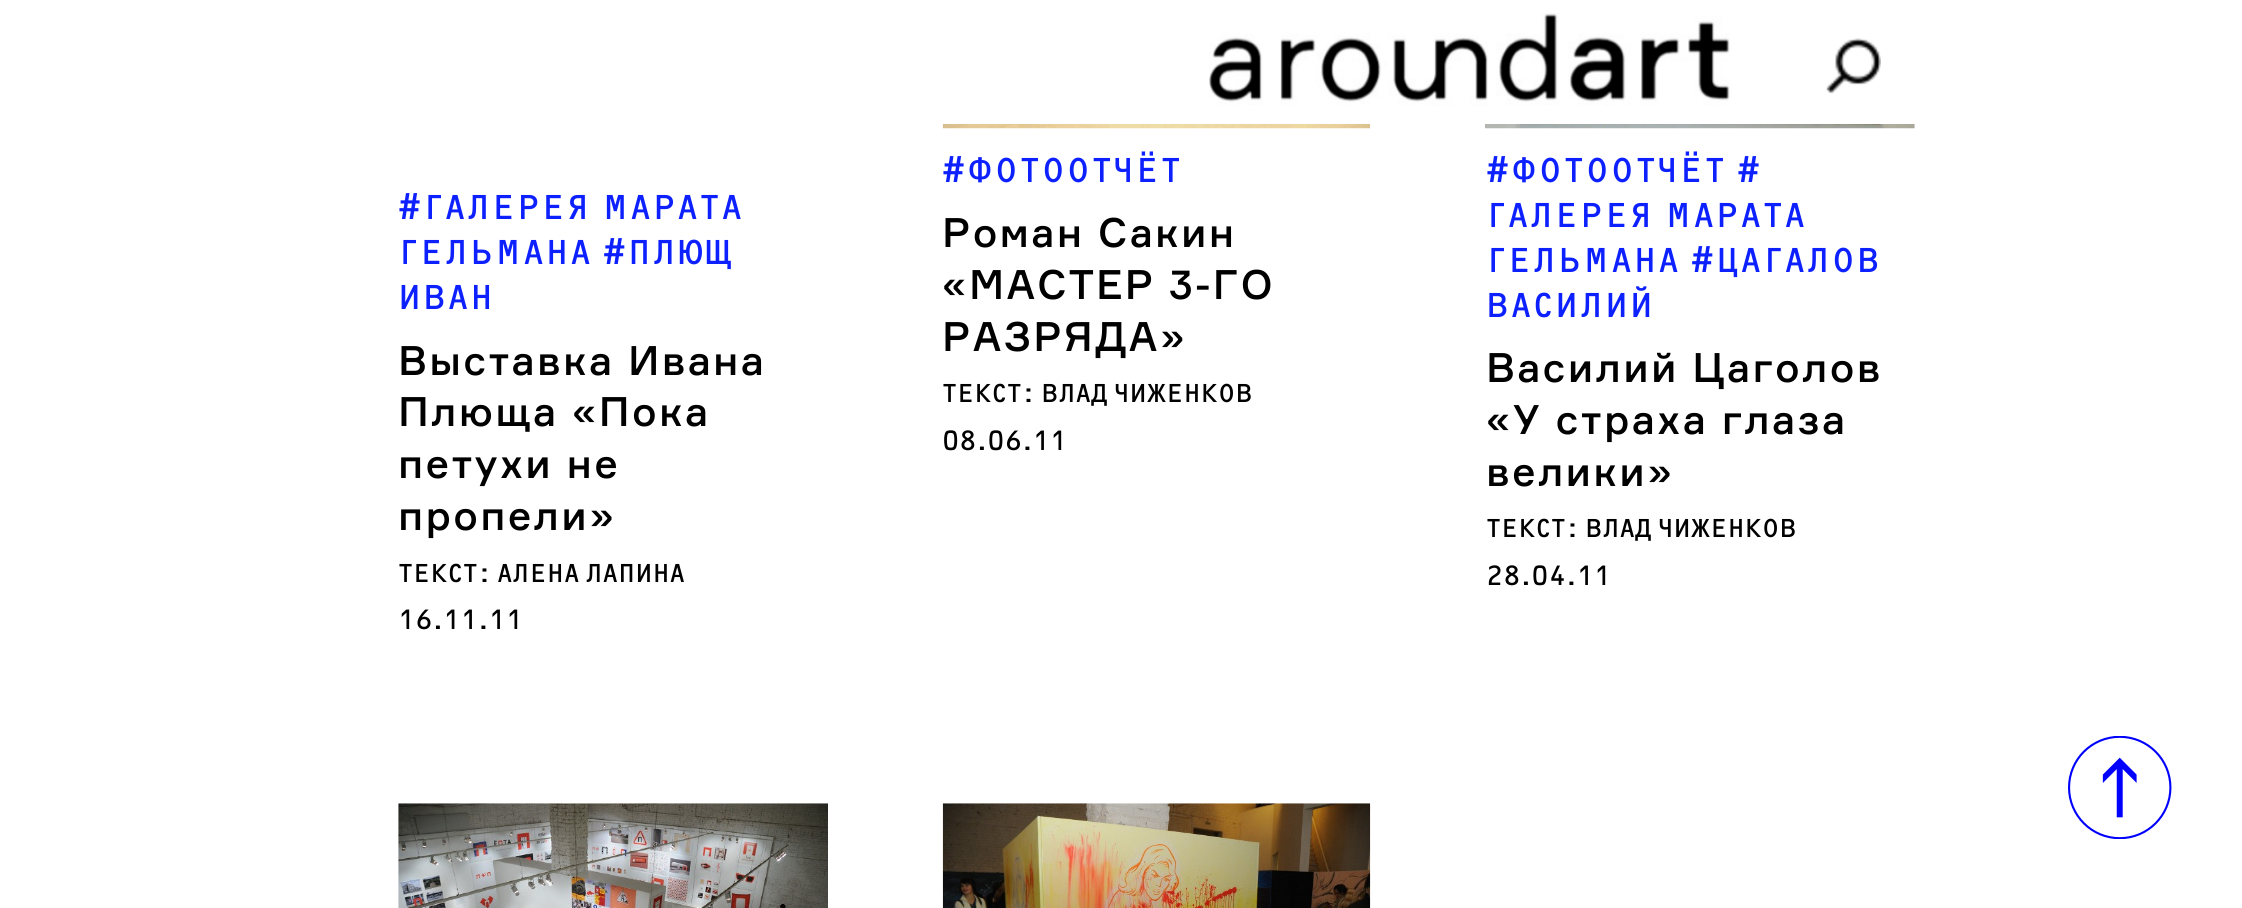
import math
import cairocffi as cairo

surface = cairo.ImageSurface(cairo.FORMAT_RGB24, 2242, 908)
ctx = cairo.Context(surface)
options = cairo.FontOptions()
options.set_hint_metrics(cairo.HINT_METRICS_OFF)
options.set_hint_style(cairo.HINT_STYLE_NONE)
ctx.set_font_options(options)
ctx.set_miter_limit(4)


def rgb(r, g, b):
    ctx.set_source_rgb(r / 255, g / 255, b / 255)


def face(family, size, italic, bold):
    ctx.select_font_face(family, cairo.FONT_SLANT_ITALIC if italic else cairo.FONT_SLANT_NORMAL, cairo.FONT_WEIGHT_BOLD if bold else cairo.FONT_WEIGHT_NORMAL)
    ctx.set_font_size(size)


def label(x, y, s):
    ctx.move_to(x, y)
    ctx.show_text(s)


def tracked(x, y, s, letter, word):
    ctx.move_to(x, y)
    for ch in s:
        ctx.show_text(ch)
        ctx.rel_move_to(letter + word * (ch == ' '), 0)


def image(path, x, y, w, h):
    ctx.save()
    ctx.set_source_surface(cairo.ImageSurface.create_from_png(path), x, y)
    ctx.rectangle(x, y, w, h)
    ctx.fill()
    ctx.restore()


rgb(255, 255, 255)
ctx.paint()
image('image0.png', 1209, 13, 521, 93)
image('image1.png', 1826, 38, 55, 56)
face('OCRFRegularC', 36, 0, 0)
rgb(13, 32, 255)
tracked(398, 219, '#ГАЛЕРЕЯ МАРАТА', 1.9, 0)
tracked(398, 264, 'ГЕЛЬМАНА #ПЛЮЩ', 1.9, 0)
tracked(398, 309, 'ИВАН', 1.9, 0)
face('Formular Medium', 40.5, 0, 0)
rgb(0, 0, 0)
tracked(398, 375, 'Выставка Ивана', 2.25, 0)
tracked(398, 426, 'Плюща «Пока', 2.25, 0)
tracked(398, 478, 'петухи не', 2.25, 0)
tracked(398, 530, 'пропели»', 2.25, 0)
face('OCRFRegularC', 27, 0, 0)
label(398, 582, 'ТЕКСТ: АЛЕНА ЛАПИНА')
label(398, 629, '16.11.11')
image('image2.png', 942, 124, 429, 5)
face('OCRFRegularC', 36, 0, 0)
rgb(13, 32, 255)
tracked(942, 182, '#ФОТООТЧЁТ', 1.9, 0)
face('Formular Medium', 40.5, 0, 0)
rgb(0, 0, 0)
tracked(942, 247, 'Роман Сакин', 2.25, 0)
tracked(942, 299, '«МАСТЕР 3-ГО', 2.25, 0)
tracked(942, 351, 'РАЗРЯДА»', 2.25, 0)
face('OCRFRegularC', 27, 0, 0)
label(942, 402, 'ТЕКСТ: ВЛАД ЧИЖЕНКОВ')
label(942, 450, '08.06.11')
image('image3.png', 1485, 124, 430, 5)
face('OCRFRegularC', 36, 0, 0)
rgb(13, 32, 255)
tracked(1486, 182, '#ФОТООТЧЁТ #', 1.9, 0)
tracked(1486, 227, 'ГАЛЕРЕЯ МАРАТА', 1.9, 0)
tracked(1486, 272, 'ГЕЛЬМАНА #ЦАГАЛОВ', 1.9, 0)
tracked(1486, 317, 'ВАСИЛИЙ', 1.9, 0)
face('Formular Medium', 40.5, 0, 0)
rgb(0, 0, 0)
tracked(1486, 382, 'Василий Цаголов', 2.25, 0)
tracked(1486, 434, '«У страха глаза', 2.25, 0)
tracked(1486, 486, 'велики»', 2.25, 0)
face('OCRFRegularC', 27, 0, 0)
label(1486, 537, 'ТЕКСТ: ВЛАД ЧИЖЕНКОВ')
label(1486, 585, '28.04.11')
image('image4.png', 398, 803, 430, 105)
image('image5.png', 942, 803, 429, 105)
image('image6.png', 2068, 736, 104, 103)
surface.write_to_png('render.png')
